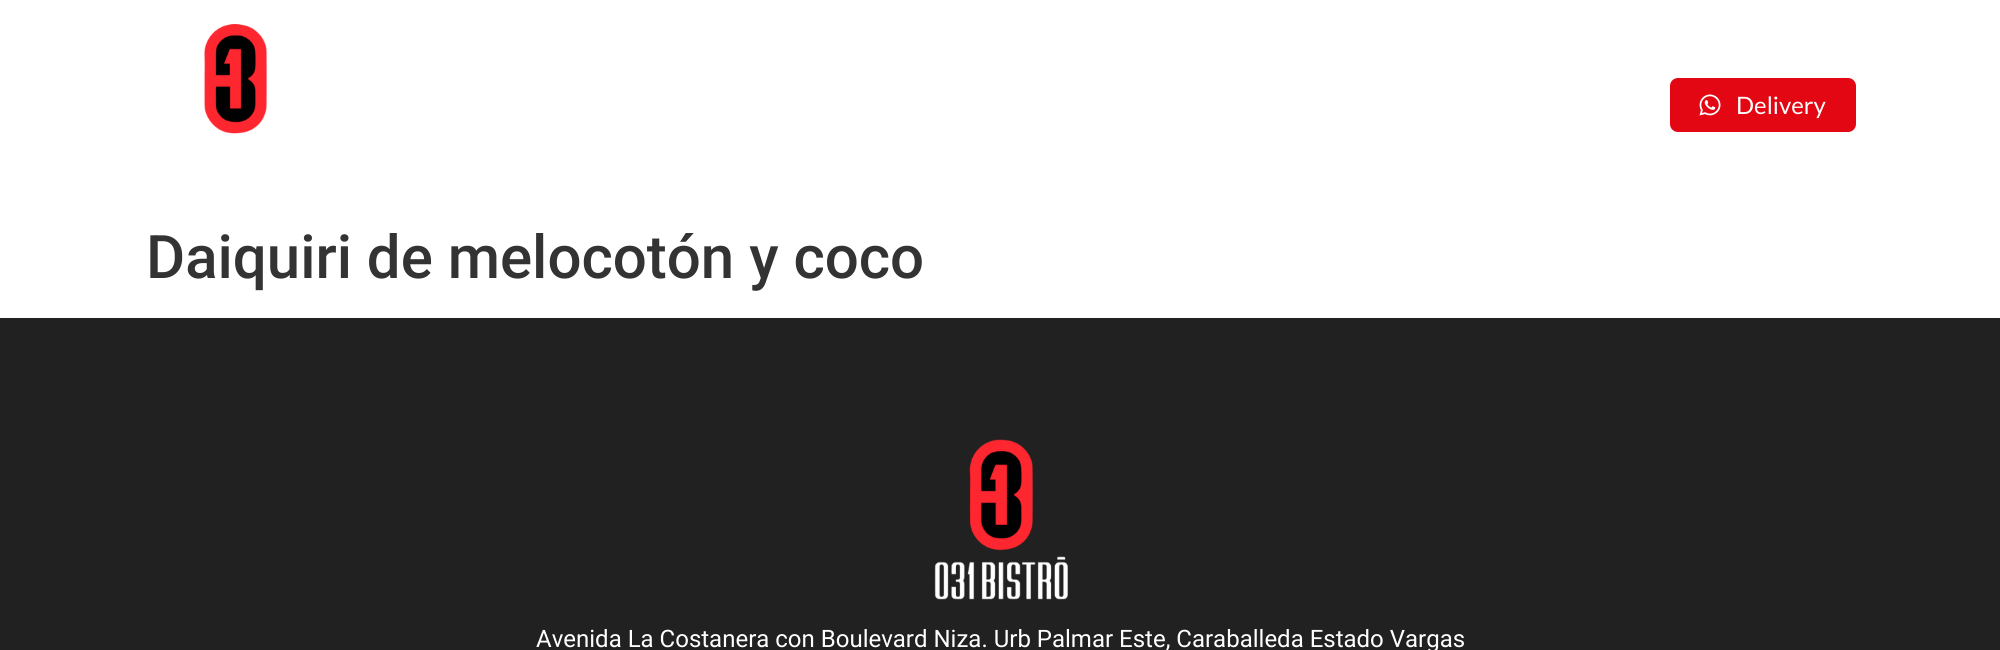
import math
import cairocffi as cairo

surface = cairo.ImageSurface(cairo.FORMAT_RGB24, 2000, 650)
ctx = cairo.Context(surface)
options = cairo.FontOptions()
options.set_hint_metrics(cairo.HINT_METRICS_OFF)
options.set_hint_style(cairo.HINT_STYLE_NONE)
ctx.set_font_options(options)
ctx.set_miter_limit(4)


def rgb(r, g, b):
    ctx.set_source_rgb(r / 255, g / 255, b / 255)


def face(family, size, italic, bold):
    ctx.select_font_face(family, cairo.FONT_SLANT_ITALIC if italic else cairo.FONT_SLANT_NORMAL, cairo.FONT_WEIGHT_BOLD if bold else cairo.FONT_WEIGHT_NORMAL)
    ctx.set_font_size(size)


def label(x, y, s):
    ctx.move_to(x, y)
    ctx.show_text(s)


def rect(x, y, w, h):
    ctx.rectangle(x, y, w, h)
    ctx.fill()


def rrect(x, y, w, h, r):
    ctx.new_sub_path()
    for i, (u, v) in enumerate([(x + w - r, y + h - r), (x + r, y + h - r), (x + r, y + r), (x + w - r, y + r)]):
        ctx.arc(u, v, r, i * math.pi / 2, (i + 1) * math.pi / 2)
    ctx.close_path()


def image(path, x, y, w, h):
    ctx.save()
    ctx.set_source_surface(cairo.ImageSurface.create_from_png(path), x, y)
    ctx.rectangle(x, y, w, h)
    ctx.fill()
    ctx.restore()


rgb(255, 255, 255)
ctx.paint()
image('image0.png', 204, 24, 63, 110)
rgb(227, 6, 19)
rrect(1670, 78, 186, 54, 8)
ctx.fill()
image('image1.png', 1699, 94, 22, 22)
face('Lato', 24, 0, 0)
rgb(255, 255, 255)
label(1736, 114, 'Delivery')
face('Roboto Medium', 60, 0, 0)
rgb(51, 51, 51)
label(146, 278, 'Daiquiri de melocotón y coco')
rgb(33, 33, 33)
rect(0, 318, 2000, 332)
image('image2.png', 934, 439, 134, 161)
face('Roboto', 24, 0, 0)
rgb(255, 255, 255)
label(536, 647, 'Avenida La Costanera con Boulevard Niza. Urb Palmar Este, Caraballeda Estado Vargas')
surface.write_to_png('render.png')
